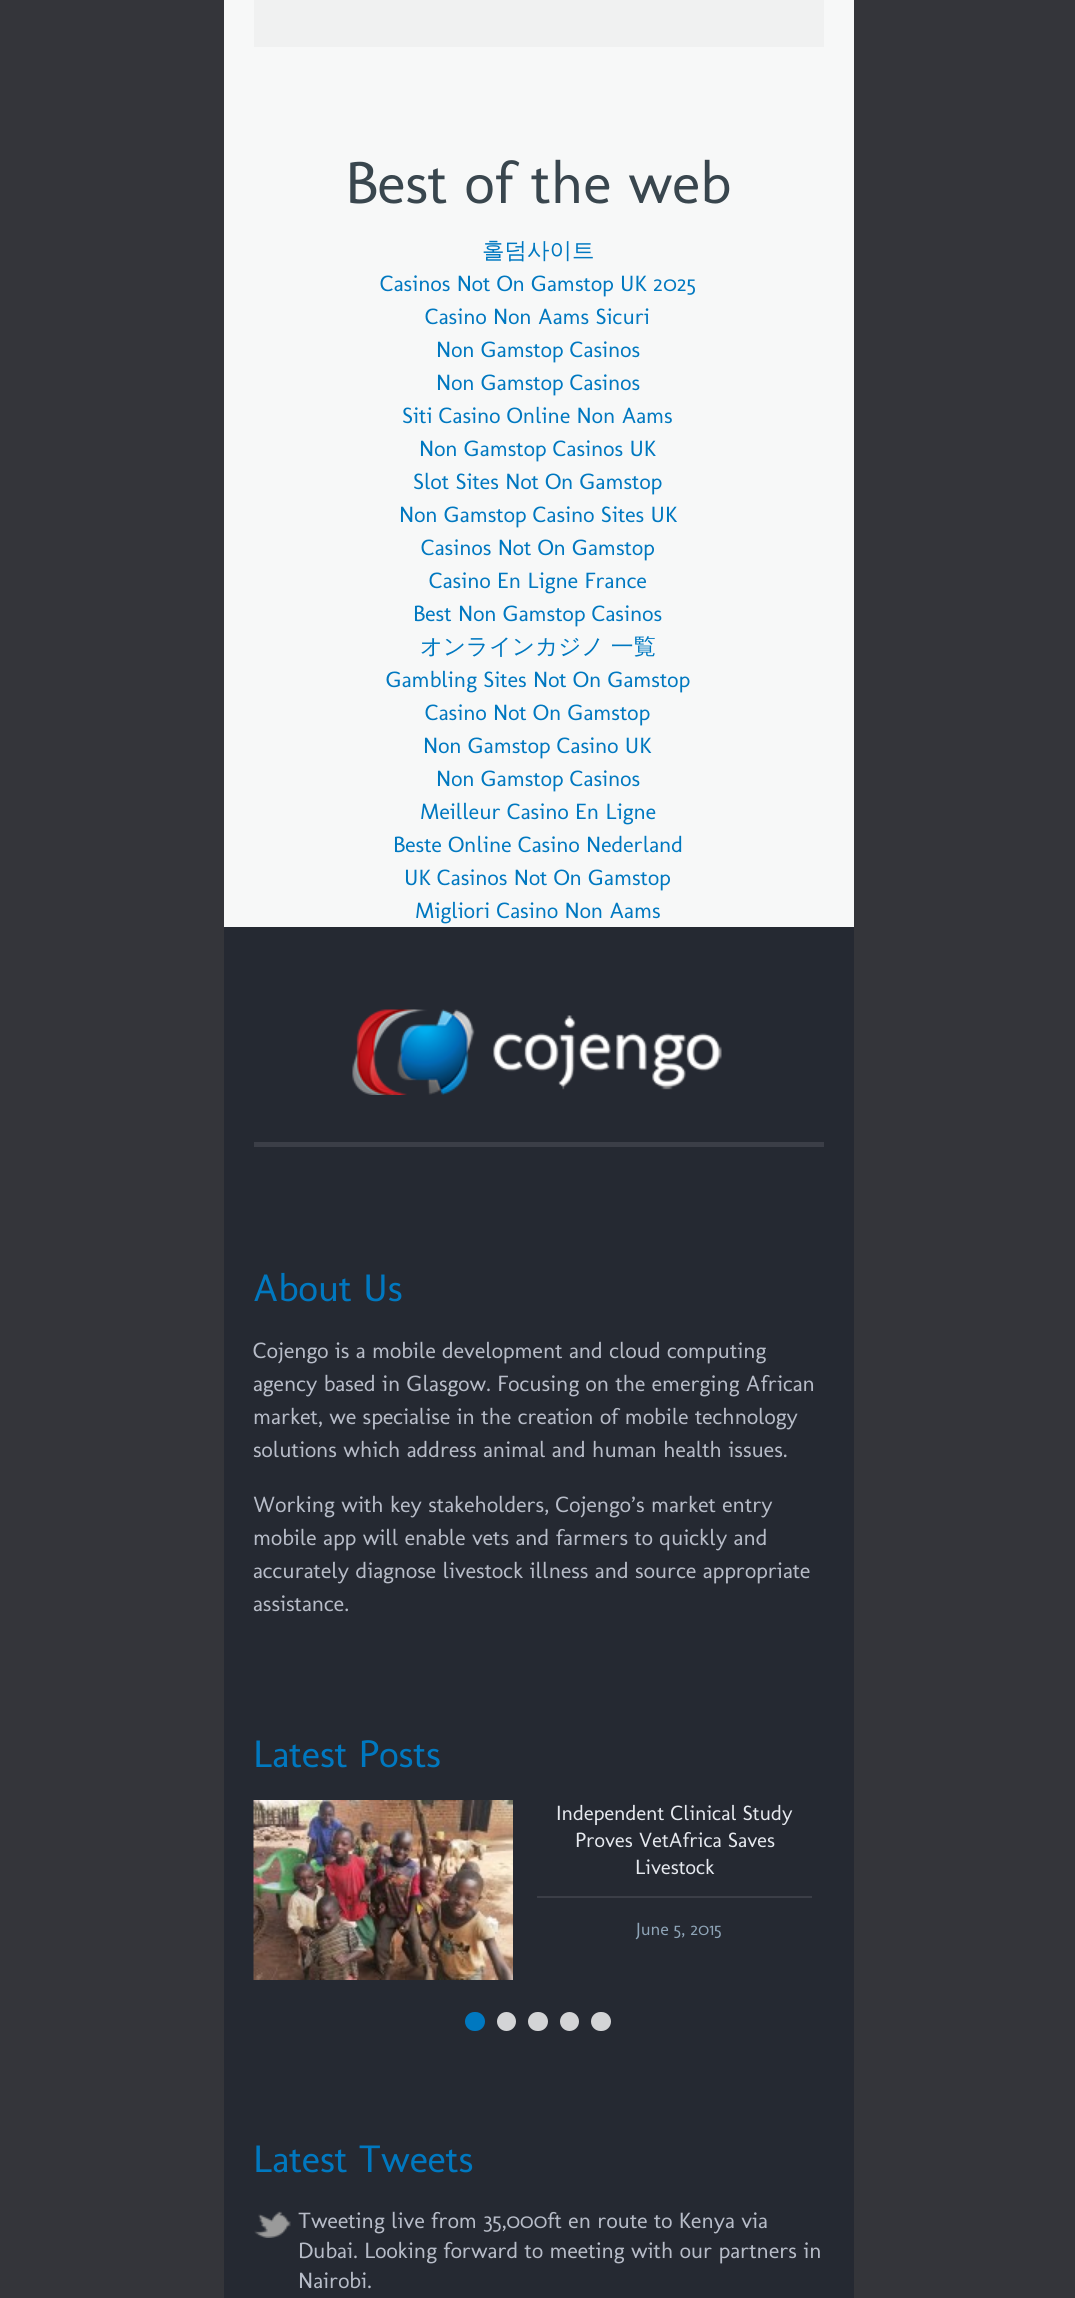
import math
import cairocffi as cairo

surface = cairo.ImageSurface(cairo.FORMAT_RGB24, 1075, 2298)
ctx = cairo.Context(surface)
options = cairo.FontOptions()
options.set_hint_metrics(cairo.HINT_METRICS_OFF)
options.set_hint_style(cairo.HINT_STYLE_NONE)
ctx.set_font_options(options)
ctx.set_miter_limit(4)


def rgb(r, g, b):
    ctx.set_source_rgb(r / 255, g / 255, b / 255)


def face(family, size, italic, bold):
    ctx.select_font_face(family, cairo.FONT_SLANT_ITALIC if italic else cairo.FONT_SLANT_NORMAL, cairo.FONT_WEIGHT_BOLD if bold else cairo.FONT_WEIGHT_NORMAL)
    ctx.set_font_size(size)


def label(x, y, s):
    ctx.move_to(x, y)
    ctx.show_text(s)


def rect(x, y, w, h):
    ctx.rectangle(x, y, w, h)
    ctx.fill()


def rrect(x, y, w, h, r):
    ctx.new_sub_path()
    for i, (u, v) in enumerate([(x + w - r, y + h - r), (x + r, y + h - r), (x + r, y + r), (x + w - r, y + r)]):
        ctx.arc(u, v, r, i * math.pi / 2, (i + 1) * math.pi / 2)
    ctx.close_path()


def image(path, x, y, w, h):
    ctx.save()
    ctx.set_source_surface(cairo.ImageSurface.create_from_png(path), x, y)
    ctx.rectangle(x, y, w, h)
    ctx.fill()
    ctx.restore()


rgb(52, 53, 58)
ctx.paint()
rgb(247, 248, 248)
rect(224, 0, 630, 927)
rgb(240, 241, 241)
rect(254, 0, 570, 47)
face('Molengo', 60, 0, 0)
rgb(57, 70, 78)
label(345, 203, 'Best of the web')
face('WenQuanYi Zen Hei Medium', 22.5, 0, 0)
rgb(0, 120, 192)
label(482, 258, '홀덤사이트')
face('Molengo', 22.5, 0, 0)
label(380, 291, 'Casinos Not On Gamstop UK 2025')
label(425, 324, 'Casino Non Aams Sicuri')
label(436, 357, 'Non Gamstop Casinos')
label(436, 390, 'Non Gamstop Casinos')
label(402, 423, 'Siti Casino Online Non Aams')
label(419, 456, 'Non Gamstop Casinos UK')
label(413, 489, 'Slot Sites Not On Gamstop')
label(399, 522, 'Non Gamstop Casino Sites UK')
label(421, 555, 'Casinos Not On Gamstop')
label(429, 588, 'Casino En Ligne France')
label(413, 621, 'Best Non Gamstop Casinos')
face('WenQuanYi Zen Hei Medium', 22.5, 0, 0)
label(420, 654, 'オンラインカジノ 一覧')
face('Molengo', 22.5, 0, 0)
label(386, 687, 'Gambling Sites Not On Gamstop')
label(425, 720, 'Casino Not On Gamstop')
label(423, 753, 'Non Gamstop Casino UK')
label(436, 786, 'Non Gamstop Casinos')
label(420, 819, 'Meilleur Casino En Ligne')
label(393, 852, 'Beste Online Casino Nederland')
label(404, 885, 'UK Casinos Not On Gamstop')
label(415, 918, 'Migliori Casino Non Aams')
rgb(37, 41, 50)
rect(224, 927, 630, 1371)
rgb(59, 62, 71)
rect(254, 1142, 570, 5)
image('image0.png', 352, 1009, 370, 86)
face('Molengo', 39, 0, 0)
rgb(0, 120, 192)
label(253, 1301, 'About Us')
face('Molengo', 22.5, 0, 0)
rgb(183, 188, 200)
label(253, 1358, 'Cojengo is a mobile development and cloud computing')
label(253, 1391, 'agency based in Glasgow. Focusing on the emerging African')
label(253, 1424, 'market, we specialise in the creation of mobile technology')
label(253, 1457, 'solutions which address animal and human health issues.')
label(253, 1512, 'Working with key stakeholders, Cojengo’s market entry')
label(253, 1545, 'mobile app will enable vets and farmers to quickly and')
label(253, 1578, 'accurately diagnose livestock illness and source appropriate')
label(253, 1611, 'assistance.')
face('Molengo', 39, 0, 0)
rgb(0, 120, 192)
label(253, 1767, 'Latest Posts')
image('image1.png', 253, 1800, 260, 180)
face('Molengo', 21, 0, 0)
rgb(230, 233, 239)
label(556, 1820, 'Independent Clinical Study')
label(575, 1847, 'Proves VetAfrica Saves')
label(635, 1874, 'Livestock')
rgb(59, 62, 71)
rect(537, 1896, 275, 2)
face('Molengo', 18, 0, 0)
rgb(143, 165, 184)
label(636, 1935, 'June 5, 2015')
rgb(0, 120, 192)
rrect(465, 2012, 20, 19, 9.5)
ctx.fill()
rgb(211, 212, 214)
ctx.arc(506.5, 2021.5, 9.5, 0, 2 * math.pi)
ctx.fill()
rrect(528, 2012, 20, 19, 9.5)
ctx.fill()
ctx.arc(569.5, 2021.5, 9.5, 0, 2 * math.pi)
ctx.fill()
rrect(591, 2012, 20, 19, 9.5)
ctx.fill()
face('Molengo', 39, 0, 0)
rgb(0, 120, 192)
label(253, 2172, 'Latest Tweets')
image('image2.png', 254, 2211, 37, 27)
face('Molengo', 22.5, 0, 0)
rgb(183, 188, 200)
label(298, 2228, 'Tweeting live from 35,000ft en route to Kenya via')
label(298, 2258, 'Dubai. Looking forward to meeting with our partners in')
label(298, 2288, 'Nairobi.')
surface.write_to_png('render.png')
